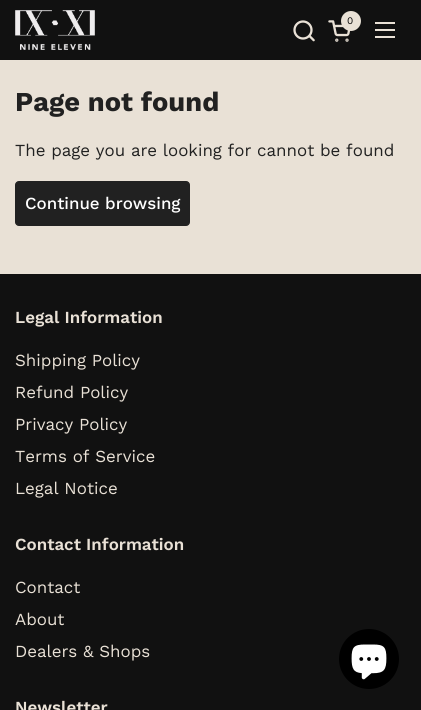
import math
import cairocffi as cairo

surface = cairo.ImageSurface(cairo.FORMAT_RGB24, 421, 710)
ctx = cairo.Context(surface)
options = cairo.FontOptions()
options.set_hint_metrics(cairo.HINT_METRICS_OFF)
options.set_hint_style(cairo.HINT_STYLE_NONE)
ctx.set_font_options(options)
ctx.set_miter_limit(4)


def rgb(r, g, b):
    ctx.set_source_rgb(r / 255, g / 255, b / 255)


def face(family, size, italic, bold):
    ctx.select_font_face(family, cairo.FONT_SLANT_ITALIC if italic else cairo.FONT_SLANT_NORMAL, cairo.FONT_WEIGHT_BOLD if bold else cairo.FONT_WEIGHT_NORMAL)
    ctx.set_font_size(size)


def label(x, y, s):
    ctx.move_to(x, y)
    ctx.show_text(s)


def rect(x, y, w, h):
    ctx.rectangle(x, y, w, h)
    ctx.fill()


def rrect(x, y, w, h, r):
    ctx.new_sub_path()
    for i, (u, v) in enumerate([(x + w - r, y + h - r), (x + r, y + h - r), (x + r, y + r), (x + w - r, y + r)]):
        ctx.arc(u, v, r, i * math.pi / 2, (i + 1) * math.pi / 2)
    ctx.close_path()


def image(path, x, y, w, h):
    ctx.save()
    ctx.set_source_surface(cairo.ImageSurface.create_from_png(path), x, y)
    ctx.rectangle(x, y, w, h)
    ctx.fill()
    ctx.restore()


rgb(233, 225, 214)
ctx.paint()
rgb(17, 17, 17)
rect(0, 0, 421, 60)
image('image0.png', 15, 10, 80, 40)
image('image1.png', 293, 20, 22, 22)
rgb(233, 225, 214)
ctx.arc(351, 21, 10, 0, 2 * math.pi)
ctx.fill()
face('Work Sans', 10, 0, 0)
rgb(0, 0, 0)
label(347, 24, '0')
image('image2.png', 328, 20, 22, 22)
rgb(233, 225, 214)
rect(375, 22, 20, 2)
rect(375, 29, 20, 2)
rect(375, 36, 20, 2)
face('Work Sans', 27.25, 0, 1)
rgb(33, 33, 33)
label(15, 111, 'Page not found')
face('Work Sans', 16.9, 0, 0)
label(15, 156, 'The page you are looking for cannot be found')
rrect(15.5, 181.5, 174, 44, 3.5)
ctx.fill_preserve()
ctx.set_line_width(1)
ctx.stroke()
face('Work Sans Medium', 16.9, 0, 0)
rgb(255, 255, 255)
label(25, 209, 'Continue browsing')
rgb(17, 17, 17)
rect(0, 274, 421, 436)
face('Work Sans SemiBold', 16.9, 0, 0)
rgb(233, 225, 214)
label(15, 323, 'Legal Information')
face('Work Sans', 16.9, 0, 0)
label(15, 366, 'Shipping Policy')
label(15, 398, 'Refund Policy')
label(15, 430, 'Privacy Policy')
label(15, 462, 'Terms of Service')
label(15, 494, 'Legal Notice')
face('Work Sans SemiBold', 16.9, 0, 0)
label(15, 550, 'Contact Information')
face('Work Sans', 16.9, 0, 0)
label(15, 593, 'Contact')
label(15, 625, 'About')
label(15, 657, 'Dealers & Shops')
face('Work Sans SemiBold', 16.9, 0, 0)
label(15, 713, 'Newsletter')
rgb(0, 0, 0)
ctx.new_path()
ctx.arc(369, 659, 30, 0, 2 * math.pi)
ctx.fill()
image('image3.png', 351, 644, 36, 36)
surface.write_to_png('render.png')
